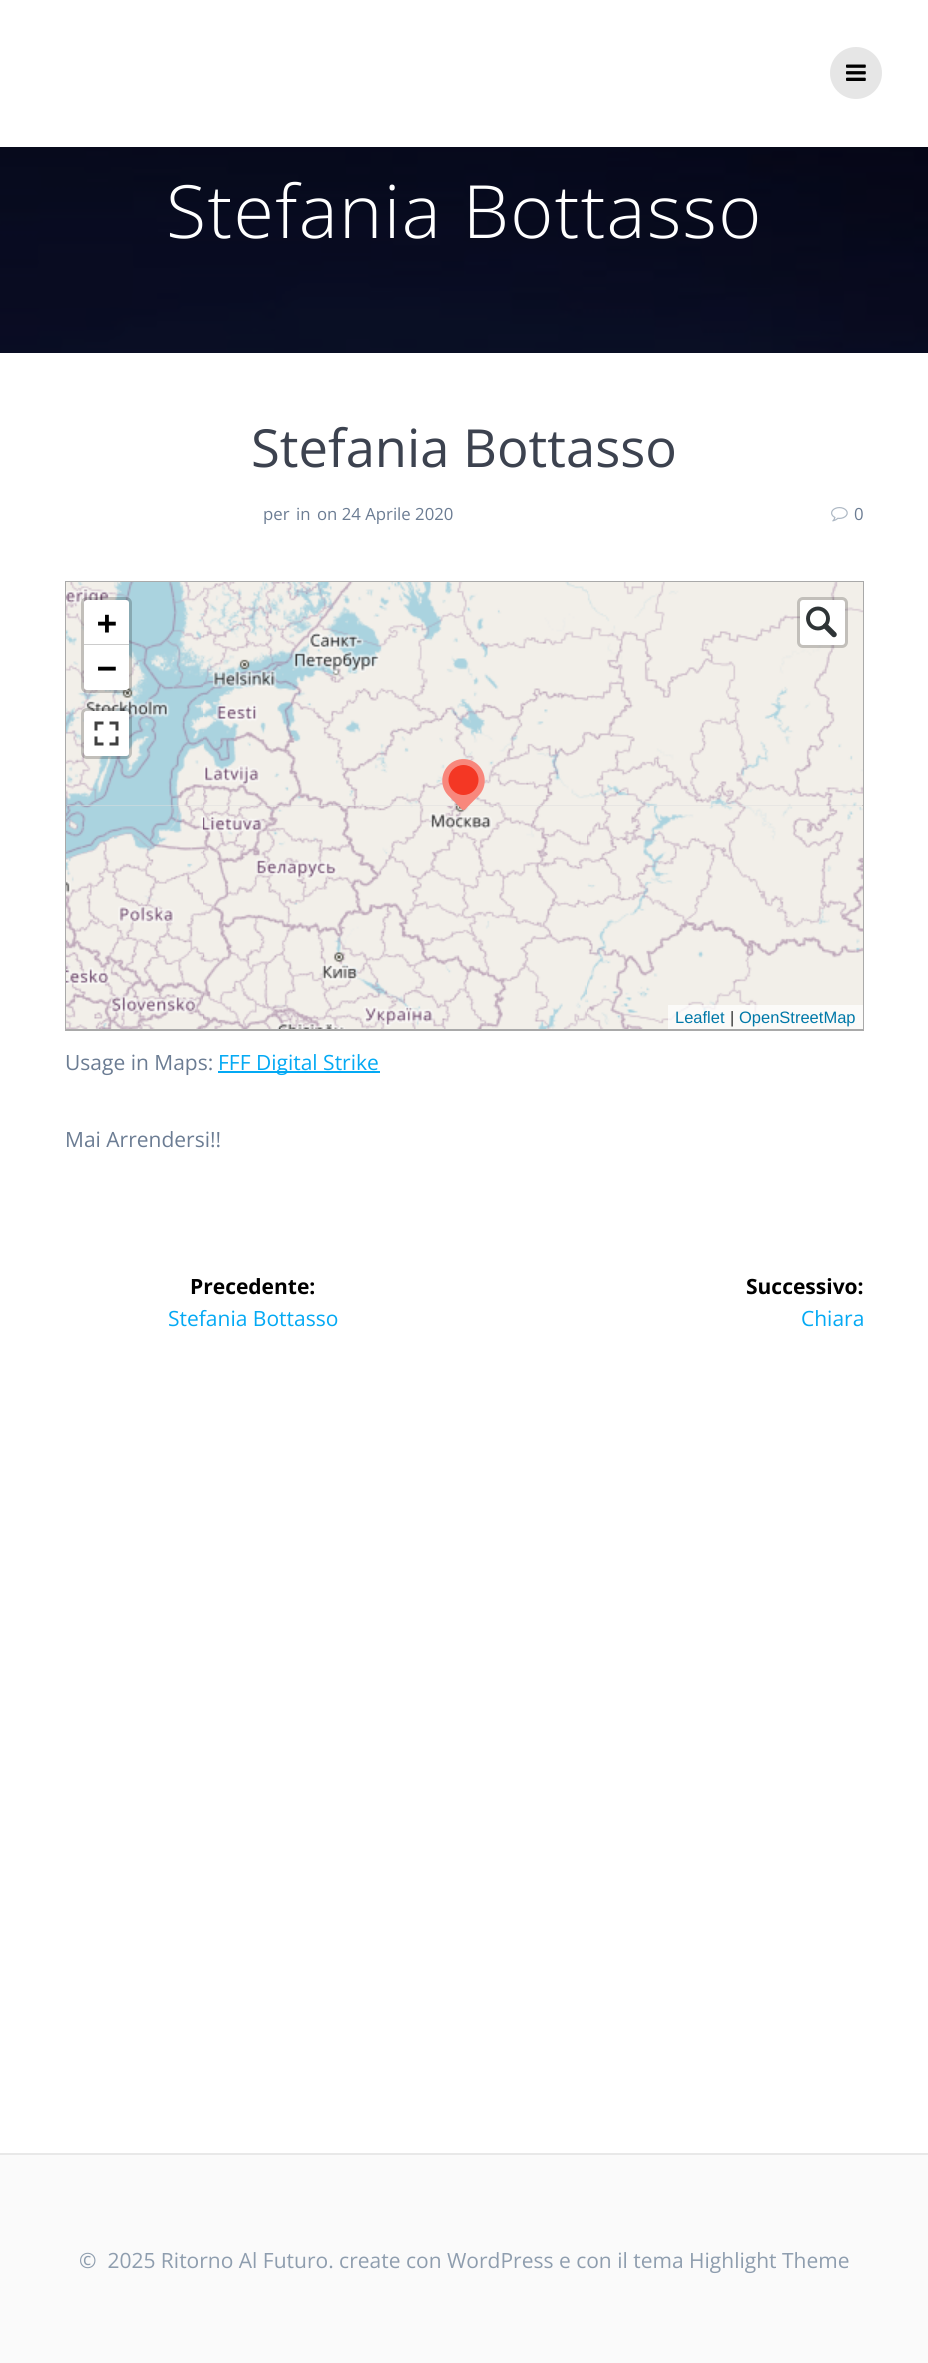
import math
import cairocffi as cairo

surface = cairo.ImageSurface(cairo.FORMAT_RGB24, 928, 2363)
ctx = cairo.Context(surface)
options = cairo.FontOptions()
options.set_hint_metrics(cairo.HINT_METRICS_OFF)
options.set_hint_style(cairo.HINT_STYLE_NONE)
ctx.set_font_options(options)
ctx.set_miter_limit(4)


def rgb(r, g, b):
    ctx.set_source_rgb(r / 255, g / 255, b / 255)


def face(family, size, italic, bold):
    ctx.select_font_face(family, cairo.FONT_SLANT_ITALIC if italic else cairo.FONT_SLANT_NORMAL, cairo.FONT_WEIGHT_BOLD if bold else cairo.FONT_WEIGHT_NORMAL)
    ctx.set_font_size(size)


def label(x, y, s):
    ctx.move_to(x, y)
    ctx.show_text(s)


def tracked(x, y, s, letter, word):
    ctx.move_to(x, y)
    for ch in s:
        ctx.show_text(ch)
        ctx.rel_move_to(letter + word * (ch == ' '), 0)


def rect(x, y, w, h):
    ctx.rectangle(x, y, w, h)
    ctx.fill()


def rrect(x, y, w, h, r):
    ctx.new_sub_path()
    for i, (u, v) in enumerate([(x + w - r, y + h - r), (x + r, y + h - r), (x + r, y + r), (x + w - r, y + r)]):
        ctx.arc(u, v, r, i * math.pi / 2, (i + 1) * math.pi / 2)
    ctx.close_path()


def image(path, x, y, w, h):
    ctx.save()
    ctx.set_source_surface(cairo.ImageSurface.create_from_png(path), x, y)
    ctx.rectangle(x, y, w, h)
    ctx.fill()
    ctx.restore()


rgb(255, 255, 255)
ctx.paint()
rgb(230, 230, 230)
ctx.arc(856, 73, 26, 0, 2 * math.pi)
ctx.fill()
image('image0.png', 846, 64, 20, 17)
image('image1.png', 0, 147, 928, 206)
face('Open Sans Light', 73.5, 0, 0)
rgb(255, 255, 255)
tracked(166, 238, 'Stefania Bottasso', 1.4, 0)
face('Open Sans', 52.5, 0, 0)
rgb(60, 66, 79)
label(251, 467, 'Stefania Bottasso')
face('Open Sans', 16.75, 0, 0)
rgb(107, 124, 147)
label(263, 520, 'per')
label(296, 520, 'in')
label(317, 520, 'on 24 Aprile 2020')
image('image2.png', 831, 507, 17, 15)
label(854, 520, '0')
rgb(221, 221, 221)
rect(67, 805, 795, 1)
ctx.rectangle(66, 582, 797, 448)
rgb(169, 169, 169)
ctx.stroke()
image('image3.png', 66, 582, 137, 224)
image('image4.png', 203, 582, 384, 224)
image('image5.png', 587, 582, 276, 224)
image('image6.png', 66, 806, 137, 223)
image('image7.png', 203, 806, 384, 223)
image('image8.png', 587, 806, 276, 223)
image('image9.png', 442, 759, 43, 51)
rrect(82.5, 598.5, 48, 93, 4.5)
ctx.set_source_rgba(0, 0, 0, 0.2)
ctx.set_line_width(3)
ctx.stroke()
rgb(255, 255, 255)
ctx.new_path()
ctx.move_to(87, 600)
ctx.line_to(126, 600)
ctx.curve_to(127.5, 600, 129, 601.5, 129, 603)
ctx.line_to(129, 645)
ctx.line_to(84, 645)
ctx.line_to(84, 603)
ctx.curve_to(84, 601.5, 85.5, 600, 87, 600)
ctx.close_path()
ctx.fill()
rgb(204, 204, 204)
rect(84, 644, 45, 1)
face('DejaVu Sans Mono', 33, 0, 1)
rgb(0, 0, 0)
label(97, 634, '+')
rgb(255, 255, 255)
ctx.new_path()
ctx.move_to(84, 645)
ctx.line_to(129, 645)
ctx.line_to(129, 687)
ctx.curve_to(129, 688.5, 127.5, 690, 126, 690)
ctx.line_to(87, 690)
ctx.curve_to(85.5, 690, 84, 688.5, 84, 687)
ctx.close_path()
ctx.fill()
rgb(0, 0, 0)
label(97, 679, '−')
rrect(82.5, 709.5, 48, 48, 4.5)
ctx.set_source_rgba(0, 0, 0, 0.2)
ctx.stroke()
rgb(255, 255, 255)
rrect(84, 711, 45, 45, 3)
ctx.fill()
image('image10.png', 94, 721, 25, 25)
rrect(800, 600, 45, 45, 3)
ctx.fill()
rrect(798.5, 598.5, 48, 48, 4.5)
ctx.set_source_rgba(0, 0, 0, 0.2)
ctx.stroke()
ctx.arc(818, 618.5, 10, 0, 2 * math.pi)
rgb(46, 52, 54)
ctx.set_line_width(3.9)
ctx.stroke()
ctx.new_path()
ctx.move_to(825.5, 626)
ctx.line_to(834, 634.5)
ctx.set_line_width(5.5)
ctx.set_line_cap(cairo.LINE_CAP_ROUND)
ctx.stroke()
ctx.set_source_rgba(1, 1, 1, 0.7)
rect(668, 1005, 195, 24)
face('Liberation Sans', 16.5, 0, 0)
rgb(0, 120, 168)
label(675, 1023, 'Leaflet')
rgb(51, 51, 51)
label(730, 1023, '|')
rgb(0, 120, 168)
label(739, 1023, 'OpenStreetMap')
face('Open Sans', 21, 0, 0)
rgb(107, 124, 147)
label(65, 1070, 'Usage in Maps:')
rgb(3, 169, 244)
rect(218, 1071, 162, 2)
label(218, 1070, 'FFF Digital Strike')
rgb(107, 124, 147)
label(65, 1147, 'Mai Arrendersi!!')
face('Open Sans', 21, 0, 1)
rgb(0, 0, 0)
label(190, 1294, 'Precedente:')
face('Open Sans', 21, 0, 0)
rgb(3, 169, 244)
label(168, 1326, 'Stefania Bottasso')
face('Open Sans', 21, 0, 1)
rgb(0, 0, 0)
label(746, 1294, 'Successivo:')
face('Open Sans', 21, 0, 0)
rgb(3, 169, 244)
label(801, 1326, 'Chiara')
rgb(250, 250, 250)
rect(0, 2155, 928, 208)
rgb(232, 232, 232)
rect(0, 2153, 928, 2)
rgb(142, 157, 174)
label(79, 2268, '©  2025 Ritorno Al Futuro. create con WordPress e con il tema Highlight Theme')
surface.write_to_png('render.png')
